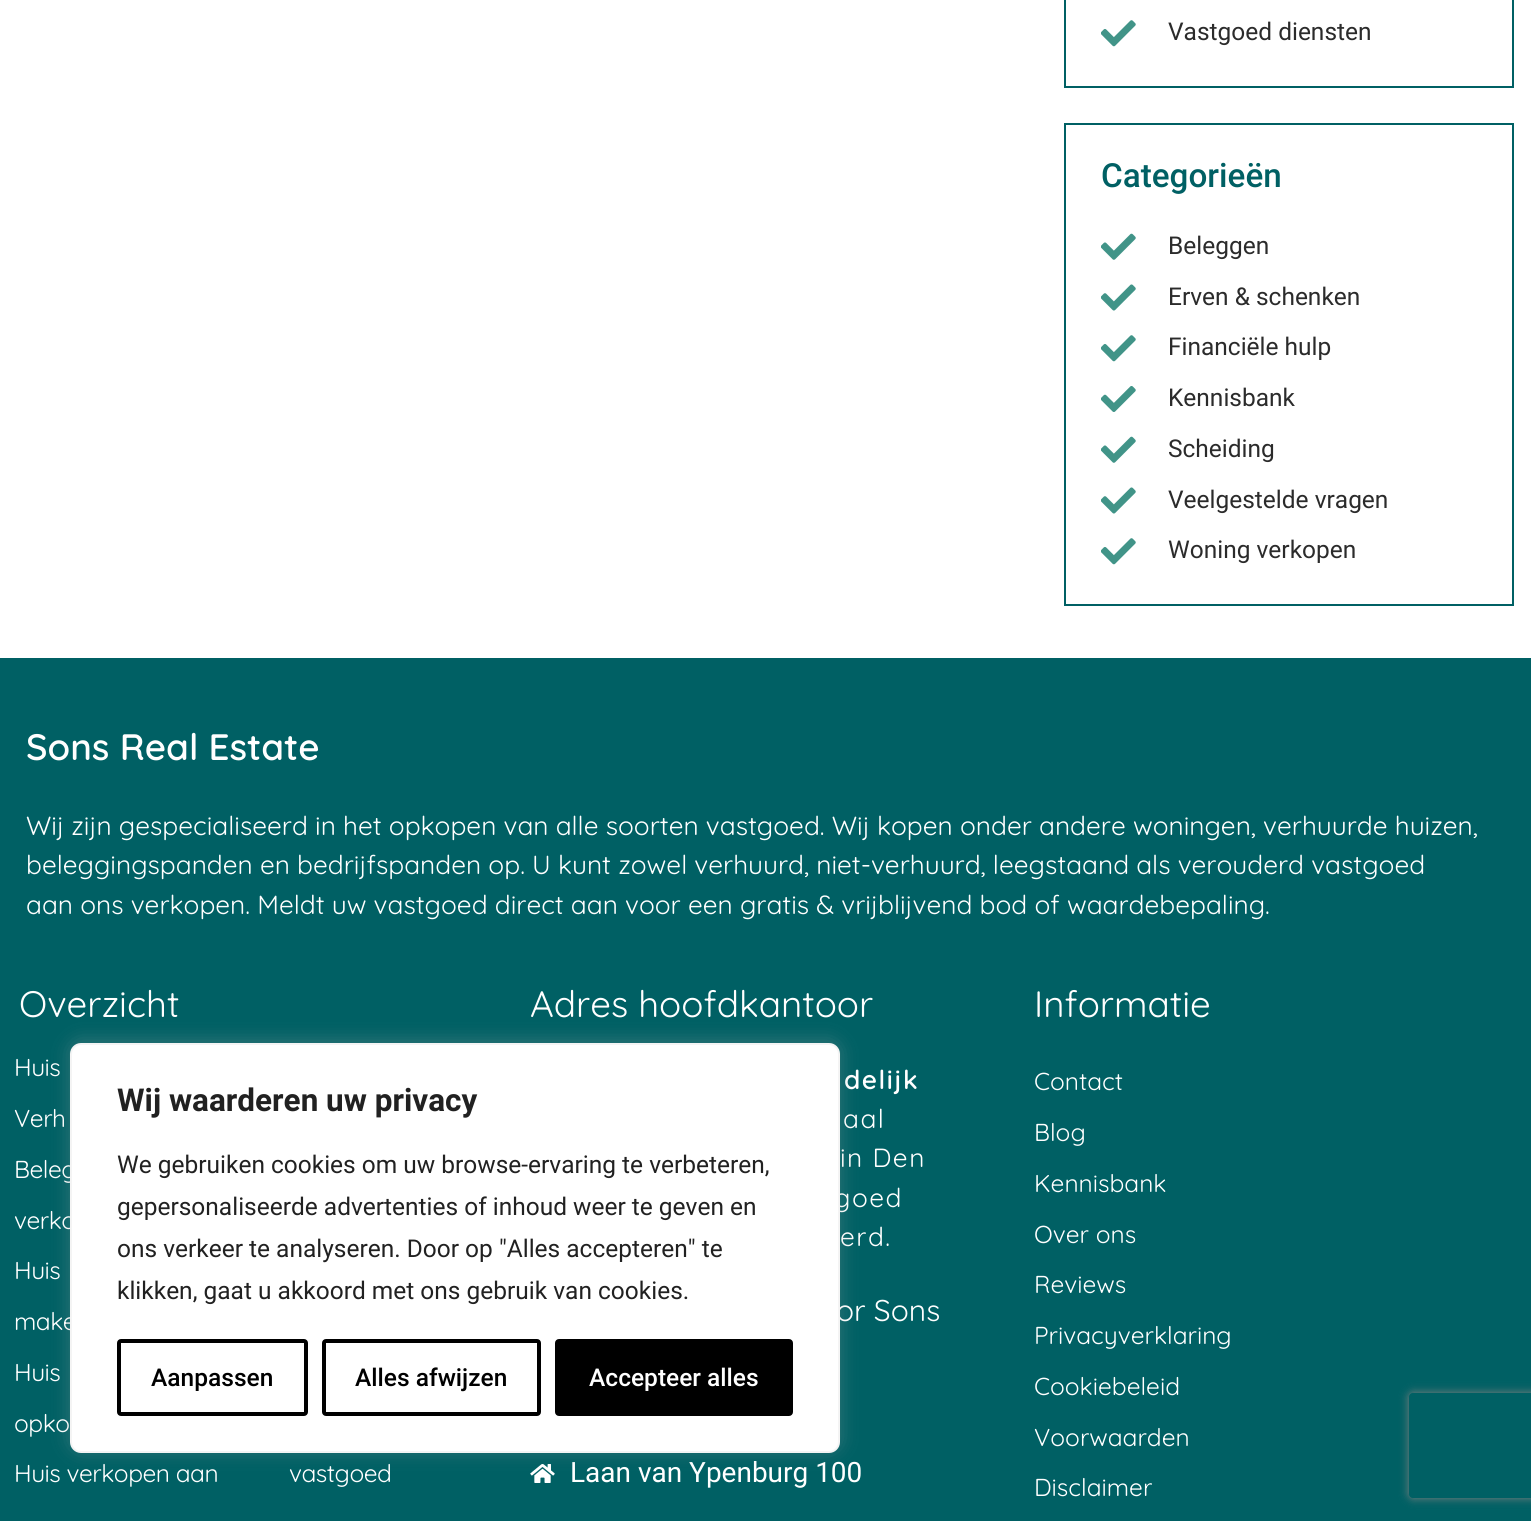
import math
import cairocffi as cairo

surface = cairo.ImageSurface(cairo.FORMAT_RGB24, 1531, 1521)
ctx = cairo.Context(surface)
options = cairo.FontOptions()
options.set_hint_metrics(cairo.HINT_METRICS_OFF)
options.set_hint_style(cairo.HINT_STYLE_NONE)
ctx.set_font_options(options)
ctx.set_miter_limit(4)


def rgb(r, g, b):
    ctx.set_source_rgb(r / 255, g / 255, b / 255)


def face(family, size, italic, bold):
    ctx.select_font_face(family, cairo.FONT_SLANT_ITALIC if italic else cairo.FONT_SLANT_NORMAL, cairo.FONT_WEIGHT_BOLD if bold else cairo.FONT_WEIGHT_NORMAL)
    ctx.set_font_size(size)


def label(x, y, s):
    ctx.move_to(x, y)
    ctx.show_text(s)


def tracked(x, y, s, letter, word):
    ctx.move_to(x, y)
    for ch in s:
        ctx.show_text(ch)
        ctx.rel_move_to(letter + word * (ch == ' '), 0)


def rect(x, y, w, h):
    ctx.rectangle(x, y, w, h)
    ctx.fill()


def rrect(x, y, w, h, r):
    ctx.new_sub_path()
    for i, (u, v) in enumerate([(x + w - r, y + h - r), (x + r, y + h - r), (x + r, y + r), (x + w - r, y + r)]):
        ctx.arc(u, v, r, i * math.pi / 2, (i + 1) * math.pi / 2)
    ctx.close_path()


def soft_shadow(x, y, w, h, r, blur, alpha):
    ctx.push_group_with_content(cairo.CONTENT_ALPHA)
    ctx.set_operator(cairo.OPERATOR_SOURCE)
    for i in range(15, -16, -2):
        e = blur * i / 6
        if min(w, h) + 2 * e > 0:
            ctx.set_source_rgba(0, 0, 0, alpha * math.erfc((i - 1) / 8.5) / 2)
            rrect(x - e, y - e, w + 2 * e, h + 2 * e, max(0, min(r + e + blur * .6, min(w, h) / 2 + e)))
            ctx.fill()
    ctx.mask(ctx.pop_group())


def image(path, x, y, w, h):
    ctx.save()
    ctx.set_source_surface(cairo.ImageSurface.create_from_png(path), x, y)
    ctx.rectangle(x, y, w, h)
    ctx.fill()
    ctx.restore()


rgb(255, 255, 255)
ctx.paint()
ctx.rectangle(1065, -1, 448, 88)
rgb(0, 96, 100)
ctx.stroke()
image('image0.png', 1101, 20, 35, 27)
face('Roboto', 24.5, 0, 0)
rgb(43, 43, 43)
label(1168, 40, 'Vastgoed diensten')
ctx.rectangle(1065, 124, 448, 481)
rgb(0, 96, 100)
ctx.stroke()
face('Roboto Medium', 33.25, 0, 0)
label(1101, 187, 'Categorieën')
image('image1.png', 1101, 233, 35, 27)
face('Roboto', 24.5, 0, 0)
rgb(43, 43, 43)
label(1168, 254, 'Beleggen')
image('image2.png', 1101, 284, 35, 27)
label(1168, 305, 'Erven & schenken')
image('image0.png', 1101, 335, 35, 27)
label(1168, 355, 'Financiële hulp')
image('image3.png', 1101, 386, 35, 26)
label(1168, 406, 'Kennisbank')
image('image1.png', 1101, 436, 35, 27)
label(1168, 457, 'Scheiding')
image('image2.png', 1101, 487, 35, 27)
label(1168, 508, 'Veelgestelde vragen')
image('image0.png', 1101, 538, 35, 27)
label(1168, 558, 'Woning verkopen')
rgb(0, 96, 100)
rect(0, 658, 1531, 863)
ctx.save()
ctx.set_fill_rule(cairo.FILL_RULE_EVEN_ODD)
ctx.new_path()
ctx.move_to(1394, 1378)
ctx.line_to(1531, 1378)
ctx.line_to(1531, 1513)
ctx.line_to(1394, 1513)
ctx.close_path()
ctx.move_to(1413, 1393)
ctx.line_to(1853, 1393)
ctx.curve_to(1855, 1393, 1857, 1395, 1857, 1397)
ctx.line_to(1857, 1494)
ctx.curve_to(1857, 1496, 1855, 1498, 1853, 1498)
ctx.line_to(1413, 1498)
ctx.curve_to(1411, 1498, 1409, 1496, 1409, 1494)
ctx.line_to(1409, 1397)
ctx.curve_to(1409, 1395, 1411, 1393, 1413, 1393)
ctx.close_path()
ctx.clip()
rgb(128, 128, 128)
soft_shadow(1409, 1393, 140, 105, 4, 4.5, 1)
ctx.restore()
face('Quicksand SemiBold', 36.75, 0, 0)
rgb(255, 255, 255)
label(26, 760, 'Sons Real Estate')
face('Quicksand Light', 26.25, 0, 0)
label(26, 835, 'Wij zijn gespecialiseerd in het opkopen van alle soorten vastgoed. Wij kopen onder andere woningen, verhuurde huizen,')
label(26, 874, 'beleggingspanden en bedrijfspanden op. U kunt zowel verhuurd, niet-verhuurd, leegstaand als verouderd vastgoed')
label(26, 914, 'aan ons verkopen. Meldt uw vastgoed direct aan voor een gratis & vrijblijvend bod of waardebepaling.')
face('Quicksand Light', 36.75, 0, 0)
label(19, 1017, 'Overzicht')
face('Quicksand Light', 24.5, 0, 0)
tracked(14, 1076, 'Huis', -0.5, 0)
tracked(14, 1127, 'Verh', -0.5, 0)
tracked(14, 1178, 'Beleg', -0.5, 0)
tracked(14, 1229, 'verko', -0.5, 0)
tracked(14, 1279, 'Huis', -0.5, 0)
tracked(14, 1330, 'make', -0.5, 0)
tracked(14, 1381, 'Huis', -0.5, 0)
tracked(14, 1432, 'opko', -0.5, 0)
tracked(14, 1482, 'Huis verkopen aan', -0.5, 0)
tracked(289, 1482, 'vastgoed', -0.5, 0)
face('Quicksand Light', 36.75, 0, 0)
label(530, 1017, 'Adres hoofdkantoor')
face('Quicksand SemiBold', 26.25, 0, 0)
tracked(844, 1089, 'delijk', 1.5, 0)
face('Quicksand Light', 26.25, 0, 0)
tracked(843, 1128, 'aal', 1.5, 0)
tracked(840, 1167, 'in Den', 1.5, 0)
tracked(834, 1207, 'goed', 1.5, 0)
tracked(840, 1246, 'erd.', 1.5, 0)
face('Quicksand Light', 30, 0, 0)
label(836, 1321, 'or Sons')
image('image4.png', 530, 1464, 25, 19)
face('Roboto', 28, 0, 0)
label(570, 1482, 'Laan van Ypenburg 100')
face('Quicksand Light', 36.75, 0, 0)
label(1034, 1017, 'Informatie')
face('Quicksand Light', 24.5, 0, 0)
label(1034, 1090, 'Contact')
label(1034, 1141, 'Blog')
label(1034, 1192, 'Kennisbank')
label(1034, 1243, 'Over ons')
label(1034, 1293, 'Reviews')
label(1034, 1344, 'Privacyverklaring')
label(1034, 1395, 'Cookiebeleid')
label(1034, 1446, 'Voorwaarden')
label(1034, 1496, 'Disclaimer')
rgb(172, 171, 171)
soft_shadow(70, 1041, 770, 410, 11, 9, 0.3)
rgb(255, 255, 255)
rrect(71, 1044, 768, 408, 10)
ctx.fill_preserve()
rgb(244, 244, 244)
ctx.stroke()
face('Roboto', 31.5, 0, 1)
rgb(33, 33, 33)
label(117, 1111, 'Wij waarderen uw privacy')
face('Roboto', 24.5, 0, 0)
label(117, 1173, 'We gebruiken cookies om uw browse-ervaring te verbeteren,')
label(117, 1215, 'gepersonaliseerde advertenties of inhoud weer te geven en')
label(117, 1257, 'ons verkeer te analyseren. Door op "Alles accepteren" te')
label(117, 1299, 'klikken, gaat u akkoord met ons gebruik van cookies.')
rrect(119, 1341, 187, 73, 2)
rgb(0, 0, 0)
ctx.set_line_width(4)
ctx.stroke()
face('Roboto Medium', 24.5, 0, 0)
label(151, 1386, 'Aanpassen')
rrect(324, 1341, 215, 73, 2)
ctx.stroke()
label(355, 1386, 'Alles afwijzen')
rrect(557, 1341, 234, 73, 2)
ctx.fill_preserve()
ctx.stroke()
rgb(255, 255, 255)
label(589, 1386, 'Accepteer alles')
surface.write_to_png('render.png')
